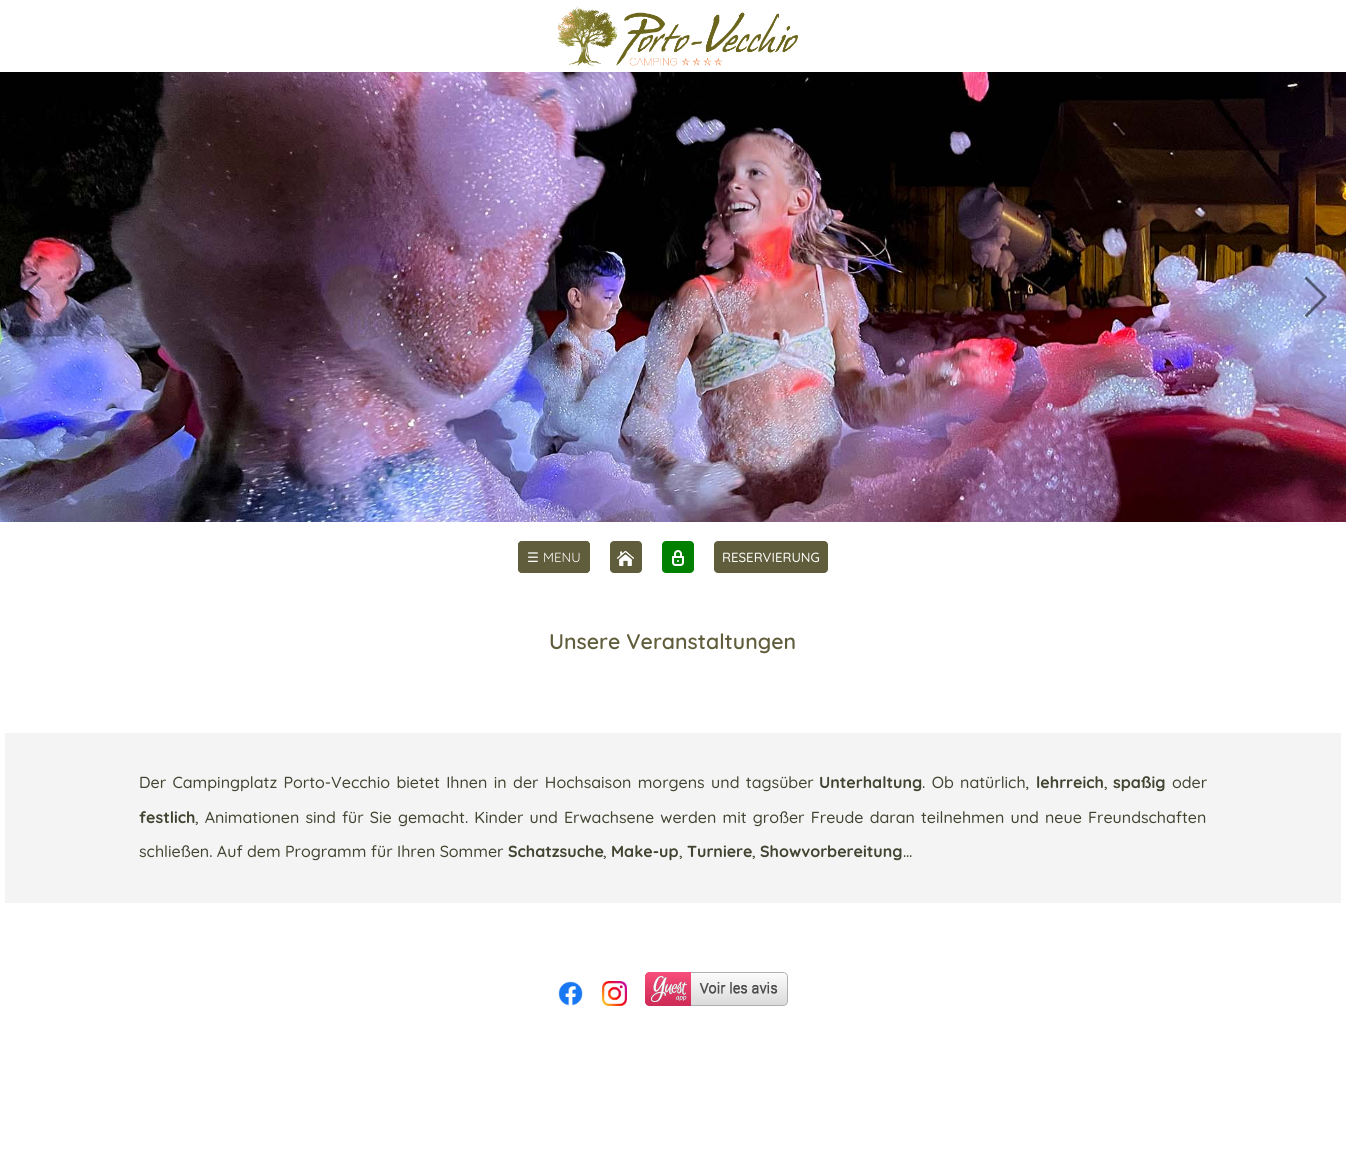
import math
import cairocffi as cairo

surface = cairo.ImageSurface(cairo.FORMAT_RGB24, 1346, 1152)
ctx = cairo.Context(surface)
options = cairo.FontOptions()
options.set_hint_metrics(cairo.HINT_METRICS_OFF)
options.set_hint_style(cairo.HINT_STYLE_NONE)
ctx.set_font_options(options)
ctx.set_miter_limit(4)


def rgb(r, g, b):
    ctx.set_source_rgb(r / 255, g / 255, b / 255)


def face(family, size, italic, bold):
    ctx.select_font_face(family, cairo.FONT_SLANT_ITALIC if italic else cairo.FONT_SLANT_NORMAL, cairo.FONT_WEIGHT_BOLD if bold else cairo.FONT_WEIGHT_NORMAL)
    ctx.set_font_size(size)


def label(x, y, s):
    ctx.move_to(x, y)
    ctx.show_text(s)


def tracked(x, y, s, letter, word):
    ctx.move_to(x, y)
    for ch in s:
        ctx.show_text(ch)
        ctx.rel_move_to(letter + word * (ch == ' '), 0)


def rect(x, y, w, h):
    ctx.rectangle(x, y, w, h)
    ctx.fill()


def rrect(x, y, w, h, r):
    ctx.new_sub_path()
    for i, (u, v) in enumerate([(x + w - r, y + h - r), (x + r, y + h - r), (x + r, y + r), (x + w - r, y + r)]):
        ctx.arc(u, v, r, i * math.pi / 2, (i + 1) * math.pi / 2)
    ctx.close_path()


def image(path, x, y, w, h):
    ctx.save()
    ctx.set_source_surface(cairo.ImageSurface.create_from_png(path), x, y)
    ctx.rectangle(x, y, w, h)
    ctx.fill()
    ctx.restore()


rgb(255, 255, 255)
ctx.paint()
image('image0.png', 557, 6, 241, 60)
image('image1.png', 0, 72, 1346, 450)
ctx.set_source_rgba(0, 0, 0, 0.5)
ctx.new_path()
ctx.move_to(39.5, 317.5)
ctx.line_to(19, 297)
ctx.line_to(23, 297)
ctx.line_to(41.5, 315.5)
ctx.close_path()
ctx.move_to(19, 297)
ctx.line_to(39.5, 276.5)
ctx.line_to(41.5, 278.5)
ctx.line_to(23, 297)
ctx.close_path()
ctx.fill()
ctx.new_path()
ctx.move_to(1306.5, 276.5)
ctx.line_to(1327, 297)
ctx.line_to(1323, 297)
ctx.line_to(1304.5, 278.5)
ctx.close_path()
ctx.move_to(1327, 297)
ctx.line_to(1306.5, 317.5)
ctx.line_to(1304.5, 315.5)
ctx.line_to(1323, 297)
ctx.close_path()
ctx.fill()
rrect(518.5, 541.5, 71, 31, 3.5)
rgb(95, 93, 59)
ctx.set_line_width(1)
ctx.stroke()
rrect(518.5, 541.5, 71, 31, 3.5)
ctx.fill_preserve()
ctx.stroke()
rrect(610, 541, 32, 32, 4)
ctx.fill()
image('image2.png', 617, 551, 17, 15)
rgb(0, 128, 0)
rrect(662, 541, 32, 32, 4)
ctx.fill()
image('image3.png', 672, 550, 12, 16)
face('DejaVu Sans', 13.25, 0, 0)
rgb(255, 255, 255)
label(527, 562, '☰')
face('Quicksand', 13.25, 0, 0)
label(543, 562, 'MENU')
rgb(95, 93, 59)
rrect(714, 541, 114, 32, 4)
ctx.fill()
face('Quicksand Medium', 13.25, 0, 0)
rgb(255, 255, 255)
label(722, 562, 'RESERVIERUNG')
face('Quicksand SemiBold', 21.25, 0, 0)
rgb(95, 93, 59)
label(549, 649, 'Unsere Veranstaltungen')
rgb(244, 244, 244)
rect(5, 733, 1336, 170)
face('Quicksand Medium', 16, 0, 0)
rgb(66, 68, 49)
tracked(139, 788, 'Der Campingplatz Porto-Vecchio bietet Ihnen in der Hochsaison morgens und tagsüber', 0, 2)
face('Quicksand', 16, 0, 1)
label(819, 788, 'Unterhaltung')
face('Quicksand Medium', 16, 0, 0)
tracked(922, 788, '. Ob natürlich,', 0, 2)
face('Quicksand', 16, 0, 1)
label(1036, 788, 'lehrreich')
face('Quicksand Medium', 16, 0, 0)
label(1104, 788, ',')
face('Quicksand', 16, 0, 1)
label(1113, 788, 'spaßig')
face('Quicksand Medium', 16, 0, 0)
label(1172, 788, 'oder')
face('Quicksand', 16, 0, 1)
label(139, 823, 'festlich')
face('Quicksand Medium', 16, 0, 0)
tracked(195, 823, ', Animationen sind für Sie gemacht. Kinder und Erwachsene werden mit großer Freude daran teilnehmen und neue Freundschaften', 0, 1.75)
label(139, 857, 'schließen. Auf dem Programm für Ihren Sommer')
face('Quicksand', 16, 0, 1)
label(508, 857, 'Schatzsuche')
face('Quicksand Medium', 16, 0, 0)
label(603, 857, ',')
face('Quicksand', 16, 0, 1)
label(611, 857, 'Make-up')
face('Quicksand Medium', 16, 0, 0)
label(679, 857, ',')
face('Quicksand', 16, 0, 1)
label(687, 857, 'Turniere')
face('Quicksand Medium', 16, 0, 0)
label(752, 857, ',')
face('Quicksand', 16, 0, 1)
label(760, 857, 'Showvorbereitung')
face('Quicksand Medium', 16, 0, 0)
label(903, 857, '…')
image('image4.png', 558, 981, 25, 25)
image('image5.png', 602, 981, 25, 25)
image('image6.png', 645, 972, 143, 34)
surface.write_to_png('render.png')
